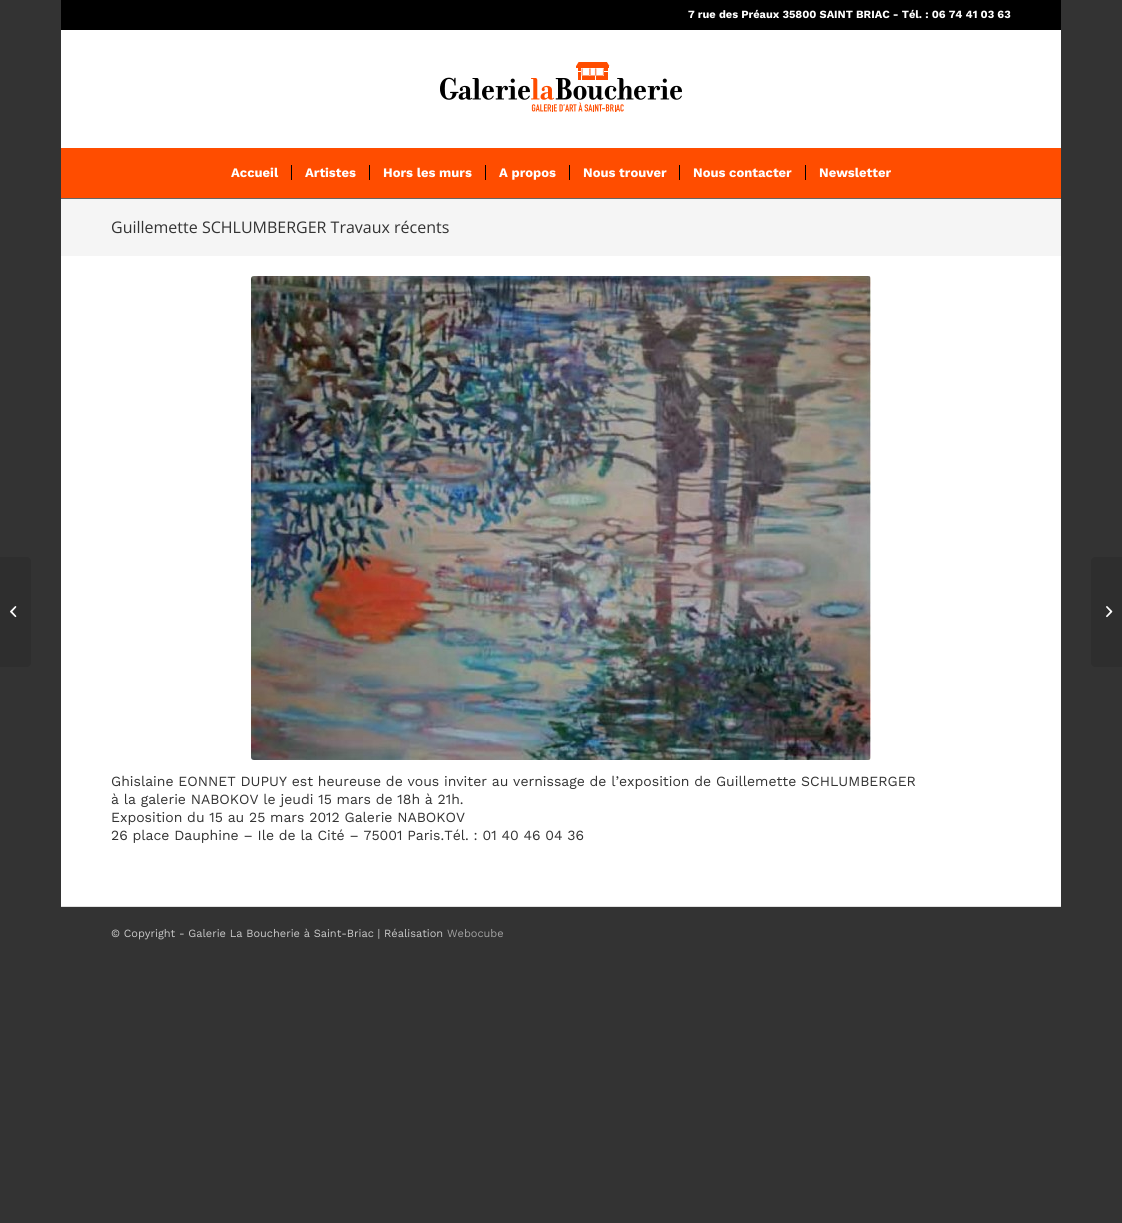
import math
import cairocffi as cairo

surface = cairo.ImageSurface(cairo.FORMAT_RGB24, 1122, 1223)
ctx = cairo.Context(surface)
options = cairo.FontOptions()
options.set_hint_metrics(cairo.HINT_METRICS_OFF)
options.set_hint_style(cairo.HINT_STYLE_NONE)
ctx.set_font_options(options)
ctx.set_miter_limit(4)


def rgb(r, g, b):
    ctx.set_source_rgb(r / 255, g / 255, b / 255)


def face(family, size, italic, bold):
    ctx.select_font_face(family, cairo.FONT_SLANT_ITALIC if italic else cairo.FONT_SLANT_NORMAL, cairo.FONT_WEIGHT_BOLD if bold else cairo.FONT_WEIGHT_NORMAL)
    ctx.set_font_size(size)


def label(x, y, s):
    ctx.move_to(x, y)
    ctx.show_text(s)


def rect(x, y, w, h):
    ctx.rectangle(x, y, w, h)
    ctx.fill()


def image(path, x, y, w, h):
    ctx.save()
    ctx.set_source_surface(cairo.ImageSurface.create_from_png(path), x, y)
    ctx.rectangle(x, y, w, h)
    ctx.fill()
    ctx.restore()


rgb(51, 51, 51)
ctx.paint()
rgb(0, 0, 0)
rect(61, 0, 1000, 30)
face('Work Sans', 11, 0, 1)
rgb(255, 255, 255)
label(688, 18, '7 rue des Préaux 35800 SAINT BRIAC - Tél. : 06 74 41 03 63')
rect(61, 30, 1000, 876)
image('image0.png', 440, 62, 242, 50)
rgb(255, 77, 0)
rect(61, 148, 1000, 50)
face('Work Sans', 13, 0, 1)
rgb(255, 255, 255)
label(231, 177, 'Accueil')
label(305, 177, 'Artistes')
rgb(0, 0, 0)
rect(291, 165, 1, 15)
rgb(255, 255, 255)
label(383, 177, 'Hors les murs')
rgb(0, 0, 0)
rect(369, 165, 1, 15)
rgb(255, 255, 255)
label(499, 177, 'A propos')
rgb(0, 0, 0)
rect(485, 165, 1, 15)
rgb(255, 255, 255)
label(583, 177, 'Nous trouver')
rgb(0, 0, 0)
rect(569, 165, 1, 15)
rgb(255, 255, 255)
label(693, 177, 'Nous contacter')
rgb(0, 0, 0)
rect(679, 165, 1, 15)
rgb(255, 255, 255)
label(819, 177, 'Newsletter')
rgb(0, 0, 0)
rect(805, 165, 1, 15)
rgb(46, 46, 46)
ctx.new_path()
ctx.move_to(0, 557)
ctx.line_to(27, 557)
ctx.curve_to(29, 557, 31, 559, 31, 561)
ctx.line_to(31, 663)
ctx.curve_to(31, 665, 29, 667, 27, 667)
ctx.line_to(0, 667)
ctx.close_path()
ctx.fill()
image('image1.png', 10, 606, 7, 12)
rgb(245, 245, 245)
rect(61, 199, 1000, 57)
rgb(102, 102, 102)
rect(61, 198, 1000, 1)
face('Open Sans', 16, 0, 0)
rgb(51, 51, 51)
label(111, 233, 'Guillemette SCHLUMBERGER Travaux récents')
image('image2.png', 251, 276, 620, 484)
face('Work Sans', 14, 0, 0)
label(111, 786, 'Ghislaine EONNET DUPUY est heureuse de vous inviter au vernissage de l’exposition de Guillemette SCHLUMBERGER')
label(111, 804, 'à la galerie NABOKOV le jeudi 15 mars de 18h à 21h.')
label(111, 822, 'Exposition du 15 au 25 mars 2012 Galerie NABOKOV')
label(111, 840, '26 place Dauphine – Ile de la Cité – 75001 Paris.Tél. : 01 40 46 04 36')
rgb(225, 225, 225)
rect(61, 906, 1000, 1)
face('Work Sans', 11, 0, 0)
rgb(202, 202, 202)
label(111, 937, '© Copyright - Galerie La Boucherie à Saint-Briac | Réalisation')
rgb(163, 163, 163)
label(447, 937, 'Webocube')
rgb(46, 46, 46)
ctx.new_path()
ctx.move_to(1095, 557)
ctx.line_to(1122, 557)
ctx.line_to(1122, 667)
ctx.line_to(1095, 667)
ctx.curve_to(1093, 667, 1091, 665, 1091, 663)
ctx.line_to(1091, 561)
ctx.curve_to(1091, 559, 1093, 557, 1095, 557)
ctx.close_path()
ctx.fill()
image('image3.png', 1106, 606, 7, 12)
surface.write_to_png('render.png')
